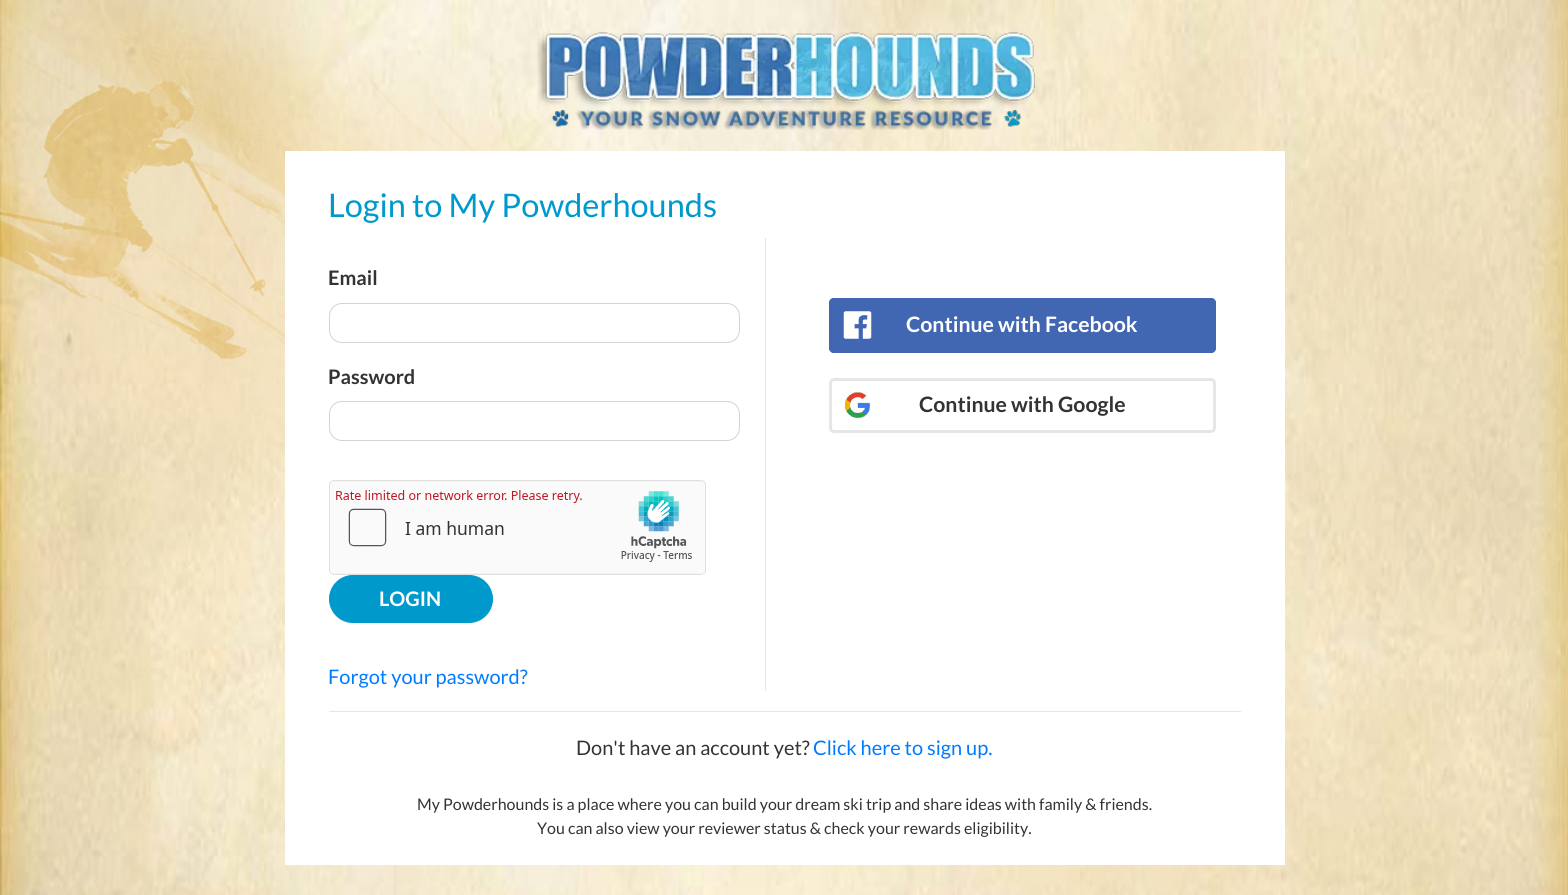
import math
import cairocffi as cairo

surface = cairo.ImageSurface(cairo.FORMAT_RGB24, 1568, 895)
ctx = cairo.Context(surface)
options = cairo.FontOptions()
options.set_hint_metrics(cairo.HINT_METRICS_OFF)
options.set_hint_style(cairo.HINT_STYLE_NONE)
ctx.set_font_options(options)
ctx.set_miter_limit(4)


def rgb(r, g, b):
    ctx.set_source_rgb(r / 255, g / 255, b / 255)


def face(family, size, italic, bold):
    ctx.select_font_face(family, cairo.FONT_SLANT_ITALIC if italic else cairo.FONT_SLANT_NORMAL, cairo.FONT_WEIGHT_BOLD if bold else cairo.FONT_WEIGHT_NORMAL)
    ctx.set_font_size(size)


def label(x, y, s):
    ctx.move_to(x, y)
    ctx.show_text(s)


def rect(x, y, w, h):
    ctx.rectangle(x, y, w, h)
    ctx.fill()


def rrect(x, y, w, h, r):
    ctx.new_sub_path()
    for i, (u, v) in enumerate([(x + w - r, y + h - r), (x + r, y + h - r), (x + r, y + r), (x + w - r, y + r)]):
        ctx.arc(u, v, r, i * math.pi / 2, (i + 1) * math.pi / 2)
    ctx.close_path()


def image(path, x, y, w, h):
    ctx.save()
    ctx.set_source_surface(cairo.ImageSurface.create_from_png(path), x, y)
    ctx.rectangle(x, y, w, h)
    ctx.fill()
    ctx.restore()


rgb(255, 255, 255)
ctx.paint()
image('image0.png', 0, 0, 1568, 895)
image('image1.png', 537, 32, 498, 98)
rgb(255, 255, 255)
rect(285, 151, 1000, 714)
face('Lato', 32.5, 0, 0)
rgb(0, 153, 204)
label(328, 217, 'Login to My Powderhounds')
rgb(230, 230, 230)
rect(765, 238, 1, 453)
face('Lato', 20, 0, 1)
rgb(51, 51, 51)
label(328, 285, 'Email')
rrect(329.5, 303.5, 410, 39, 12.5)
rgb(206, 212, 218)
ctx.set_line_width(1)
ctx.stroke()
rgb(51, 51, 51)
label(328, 384, 'Password')
rrect(329.5, 401.5, 410, 39, 12.5)
rgb(206, 212, 218)
ctx.stroke()
image('image2.png', 329, 480, 377, 95)
rgb(0, 153, 204)
rrect(329.5, 575.5, 163, 47, 23.5)
ctx.fill_preserve()
ctx.stroke()
rgb(255, 255, 255)
label(379, 606, 'LOGIN')
face('Lato', 20, 0, 0)
rgb(0, 123, 255)
label(328, 684, 'Forgot your password?')
rgb(66, 103, 178)
rrect(829, 298, 387, 55, 5)
ctx.fill()
image('image3.png', 843, 311, 29, 28)
rrect(830.5, 299.5, 384, 52, 3.5)
ctx.set_line_width(3)
ctx.stroke()
face('Lato', 21.25, 0, 1)
rgb(255, 255, 255)
label(906, 332, 'Continue with Facebook')
image('image4.png', 845, 392, 25, 26)
rrect(830.5, 379.5, 384, 52, 3.5)
rgb(230, 230, 230)
ctx.stroke()
rgb(51, 51, 51)
label(919, 412, 'Continue with Google')
rgb(230, 230, 230)
rect(329, 711, 912, 1)
face('Lato', 20, 0, 0)
rgb(51, 51, 51)
label(576, 755, 'Don\'t have an account yet?')
rgb(0, 123, 255)
label(813, 755, 'Click here to sign up.')
face('Lato', 16, 0, 0)
rgb(51, 51, 51)
label(417, 810, 'My Powderhounds is a place where you can build your dream ski trip and share ideas with family & friends.')
label(537, 834, 'You can also view your reviewer status & check your rewards eligibility.')
surface.write_to_png('render.png')
